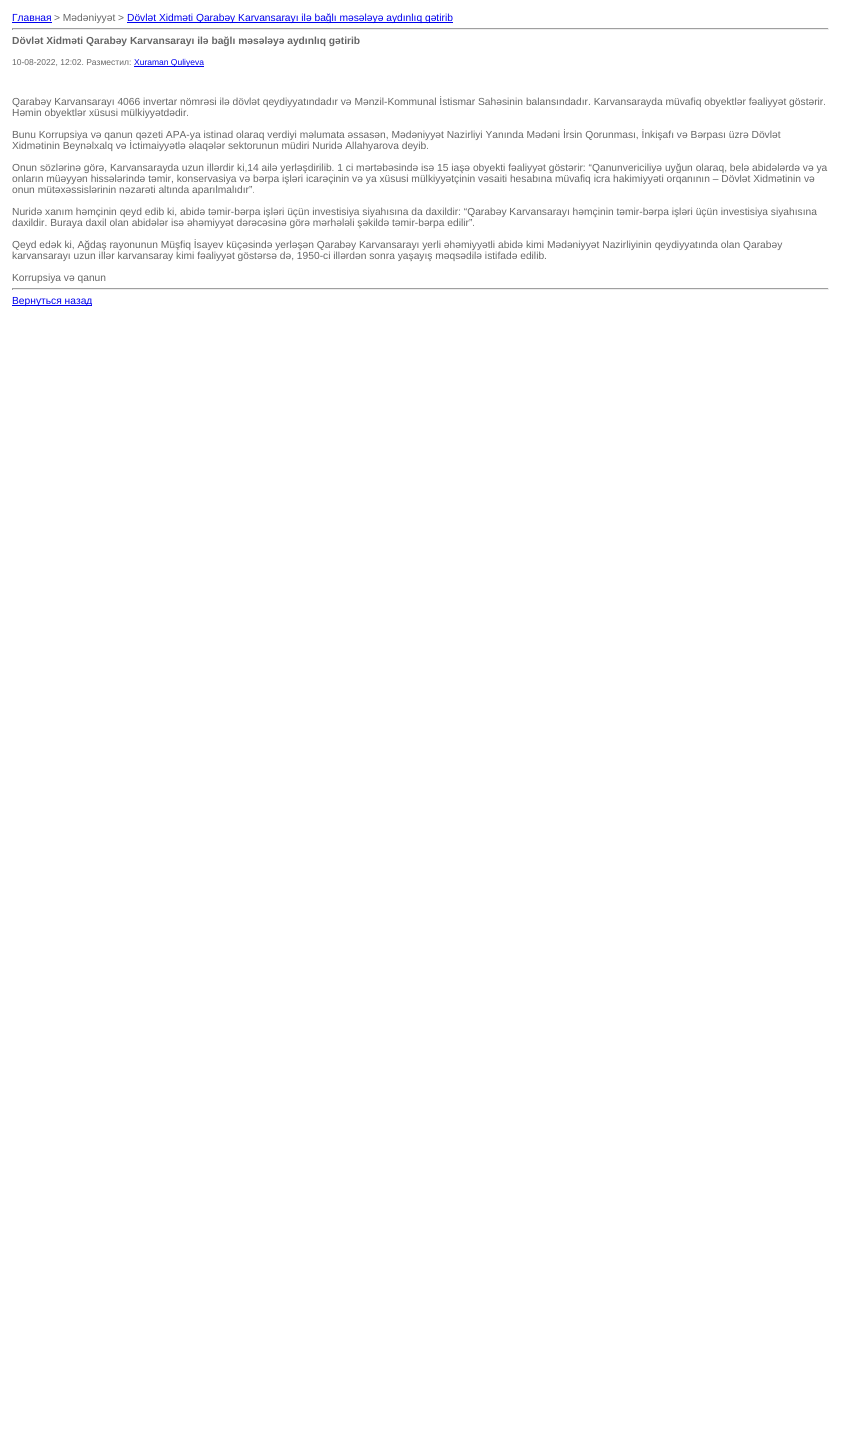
import math
import cairocffi as cairo

surface = cairo.ImageSurface(cairo.FORMAT_RGB24, 841, 1436)
ctx = cairo.Context(surface)
options = cairo.FontOptions()
options.set_hint_metrics(cairo.HINT_METRICS_OFF)
options.set_hint_style(cairo.HINT_STYLE_NONE)
ctx.set_font_options(options)
ctx.set_miter_limit(4)


def rgb(r, g, b):
    ctx.set_source_rgb(r / 255, g / 255, b / 255)


def face(family, size, italic, bold):
    ctx.select_font_face(family, cairo.FONT_SLANT_ITALIC if italic else cairo.FONT_SLANT_NORMAL, cairo.FONT_WEIGHT_BOLD if bold else cairo.FONT_WEIGHT_NORMAL)
    ctx.set_font_size(size)


def label(x, y, s):
    ctx.move_to(x, y)
    ctx.show_text(s)


def rect(x, y, w, h):
    ctx.rectangle(x, y, w, h)
    ctx.fill()


rgb(255, 255, 255)
ctx.paint()
face('Liberation Sans', 10.25, 0, 0)
rgb(0, 0, 238)
label(12, 21, 'Главная')
rect(12, 22, 40, 1)
rgb(102, 102, 102)
label(54, 21, '> Mədəniyyət >')
rgb(0, 0, 238)
rect(127, 22, 326, 1)
label(127, 21, 'Dövlət Xidməti Qarabəy Karvansarayı ilə bağlı məsələyə aydınlıq gətirib')
rgb(159, 159, 159)
rect(12, 28, 817, 1)
rgb(238, 238, 238)
rect(828, 28, 1, 2)
rect(12, 29, 817, 1)
rgb(159, 159, 159)
rect(12, 28, 1, 2)
face('Liberation Sans', 10.25, 0, 1)
rgb(102, 102, 102)
label(12, 44, 'Dövlət Xidməti Qarabəy Karvansarayı ilə bağlı məsələyə aydınlıq gətirib')
face('Liberation Sans', 8.5, 0, 0)
label(12, 65, '10-08-2022, 12:02. Разместил:')
rgb(0, 0, 238)
rect(134, 66, 70, 1)
label(134, 65, 'Xuraman Quliyeva')
face('Liberation Sans', 10.25, 0, 0)
rgb(102, 102, 102)
label(12, 105, 'Qarabəy Karvansarayı 4066 invertar nömrəsi ilə dövlət qeydiyyatındadır və Mənzil-Kommunal İstismar Sahəsinin balansındadır. Karvansarayda müvafiq obyektlər fəaliyyət göstərir.')
label(12, 116, 'Həmin obyektlər xüsusi mülkiyyətdədir.')
label(12, 138, 'Bunu Korrupsiya və qanun qəzeti APA-ya istinad olaraq verdiyi məlumata əssasən, Mədəniyyət Nazirliyi Yanında Mədəni İrsin Qorunması, İnkişafı və Bərpası üzrə Dövlət')
label(12, 149, 'Xidmətinin Beynəlxalq və İctimaiyyətlə əlaqələr sektorunun müdiri Nuridə Allahyarova deyib.')
label(12, 171, 'Onun sözlərinə görə, Karvansarayda uzun illərdir ki,14 ailə yerləşdirilib. 1 ci mərtəbəsində isə 15 iaşə obyekti fəaliyyət göstərir: “Qanunvericiliyə uyğun olaraq, belə abidələrdə və ya')
label(12, 182, 'onların müəyyən hissələrində təmir, konservasiya və bərpa işləri icarəçinin və ya xüsusi mülkiyyətçinin vəsaiti hesabına müvafiq icra hakimiyyəti orqanının – Dövlət Xidmətinin və')
label(12, 193, 'onun mütəxəssislərinin nəzarəti altında aparılmalıdır”.')
label(12, 215, 'Nuridə xanım həmçinin qeyd edib ki, abidə təmir-bərpa işləri üçün investisiya siyahısına da daxildir: “Qarabəy Karvansarayı həmçinin təmir-bərpa işləri üçün investisiya siyahısına')
label(12, 226, 'daxildir. Buraya daxil olan abidələr isə əhəmiyyət dərəcəsinə görə mərhələli şəkildə təmir-bərpa edilir”.')
label(12, 248, 'Qeyd edək ki, Ağdaş rayonunun Müşfiq İsayev küçəsində yerləşən Qarabəy Karvansarayı yerli əhəmiyyətli abidə kimi Mədəniyyət Nazirliyinin qeydiyyatında olan Qarabəy')
label(12, 259, 'karvansarayı uzun illər karvansaray kimi fəaliyyət göstərsə də, 1950-ci illərdən sonra yaşayış məqsədilə istifadə edilib.')
label(12, 281, 'Korrupsiya və qanun')
rgb(159, 159, 159)
rect(12, 288, 817, 1)
rgb(238, 238, 238)
rect(828, 288, 1, 2)
rect(12, 289, 817, 1)
rgb(159, 159, 159)
rect(12, 288, 1, 2)
rgb(0, 0, 238)
rect(12, 305, 80, 1)
label(12, 304, 'Вернуться назад')
surface.write_to_png('render.png')
